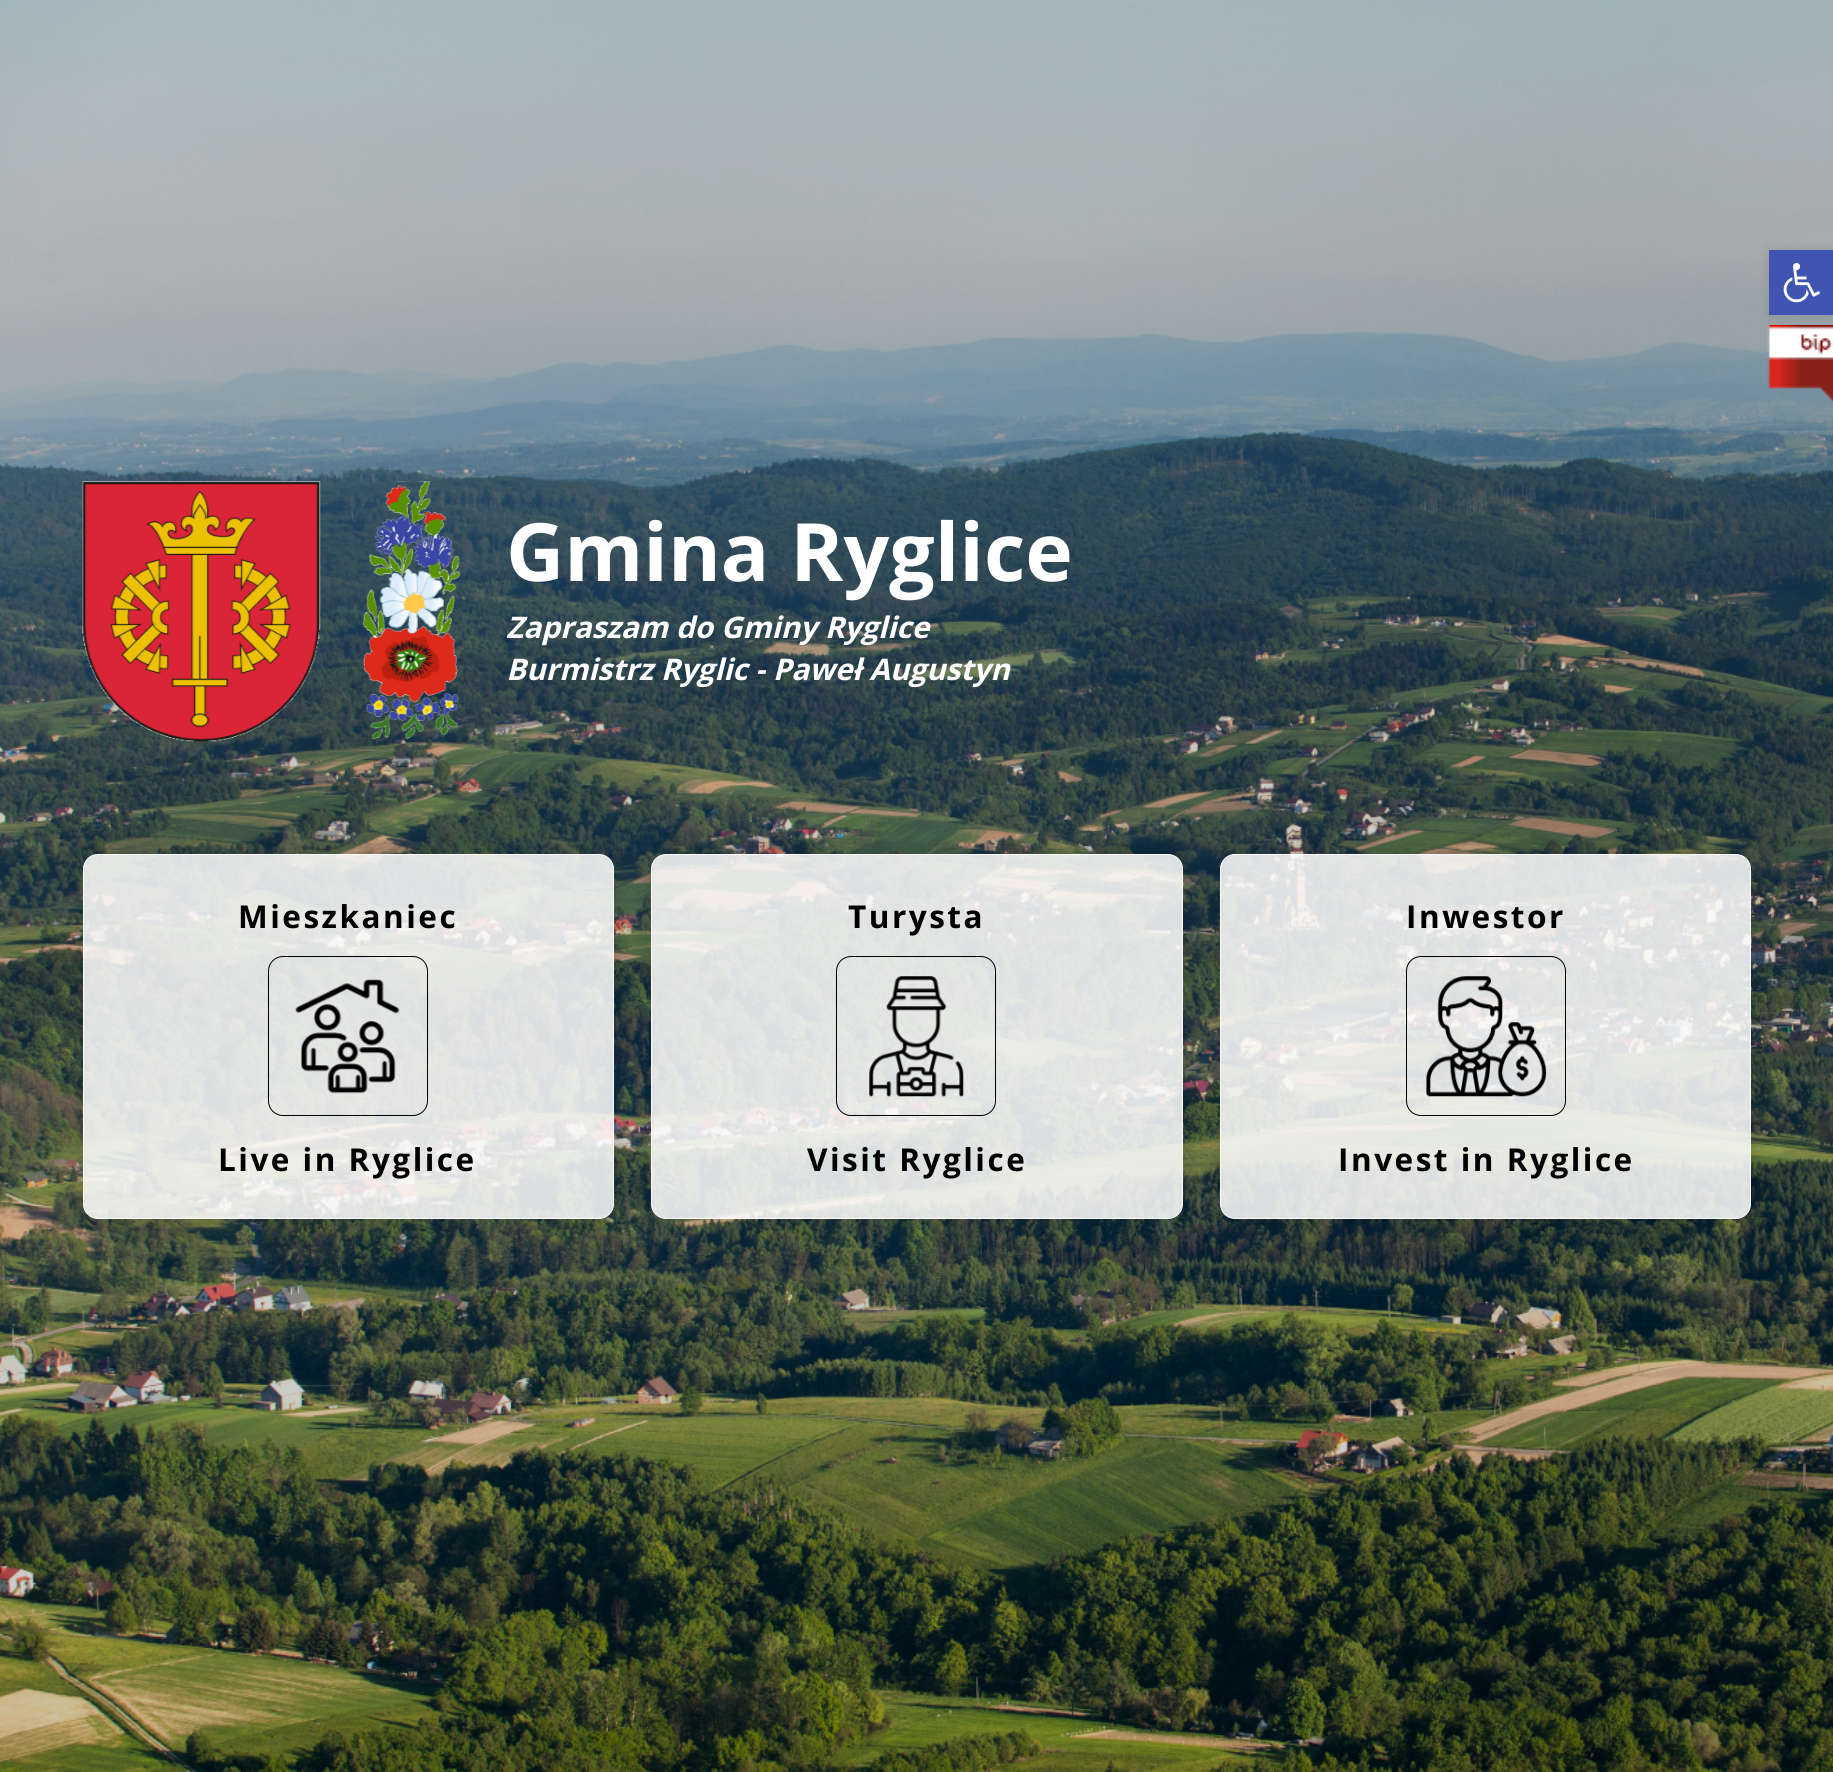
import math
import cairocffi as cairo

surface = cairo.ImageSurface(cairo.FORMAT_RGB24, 1833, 1772)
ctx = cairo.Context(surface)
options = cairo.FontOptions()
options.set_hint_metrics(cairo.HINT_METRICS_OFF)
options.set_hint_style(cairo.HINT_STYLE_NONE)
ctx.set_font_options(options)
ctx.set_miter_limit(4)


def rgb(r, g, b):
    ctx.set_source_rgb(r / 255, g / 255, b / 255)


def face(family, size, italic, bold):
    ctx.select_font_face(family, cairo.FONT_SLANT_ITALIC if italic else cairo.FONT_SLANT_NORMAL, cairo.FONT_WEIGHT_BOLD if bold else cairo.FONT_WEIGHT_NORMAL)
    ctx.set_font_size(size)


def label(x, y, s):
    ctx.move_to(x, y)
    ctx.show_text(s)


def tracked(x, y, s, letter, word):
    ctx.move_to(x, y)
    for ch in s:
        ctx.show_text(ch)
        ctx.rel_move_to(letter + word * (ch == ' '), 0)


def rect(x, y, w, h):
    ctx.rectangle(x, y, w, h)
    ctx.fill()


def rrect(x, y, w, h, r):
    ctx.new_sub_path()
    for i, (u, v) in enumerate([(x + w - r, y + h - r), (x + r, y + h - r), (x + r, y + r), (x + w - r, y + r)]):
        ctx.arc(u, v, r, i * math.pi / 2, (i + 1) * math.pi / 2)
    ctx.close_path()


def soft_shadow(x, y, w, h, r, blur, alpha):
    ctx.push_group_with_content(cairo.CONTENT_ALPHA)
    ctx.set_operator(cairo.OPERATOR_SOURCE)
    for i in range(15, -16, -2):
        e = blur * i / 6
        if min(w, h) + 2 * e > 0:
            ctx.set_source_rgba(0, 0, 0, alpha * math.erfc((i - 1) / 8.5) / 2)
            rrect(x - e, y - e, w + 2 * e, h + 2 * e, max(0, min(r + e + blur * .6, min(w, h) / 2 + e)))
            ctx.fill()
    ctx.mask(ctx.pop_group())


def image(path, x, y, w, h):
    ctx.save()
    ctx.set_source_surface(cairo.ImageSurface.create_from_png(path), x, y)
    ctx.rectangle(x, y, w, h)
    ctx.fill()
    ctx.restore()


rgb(255, 255, 255)
ctx.paint()
image('image1.png', 0, 0, 1833, 1772)
image('image2.png', 1767, 325, 66, 77)
rgb(0, 0, 0)
soft_shadow(1769, 250, 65, 65, 0, 6, 0.1)
rgb(64, 84, 178)
rect(1769, 250, 64, 65)
image('image0.png', 1783, 263, 37, 40)
image('image3.png', 82, 481, 239, 261)
image('image4.png', 362, 481, 99, 258)
face('Open Sans', 80.5, 0, 1)
rgb(255, 255, 255)
label(506, 581, 'Gmina Ryglice')
face('Open Sans', 29.75, 1, 1)
label(506, 638, 'Zapraszam do Gminy Ryglice')
label(506, 680, 'Burmistrz Ryglic - Paweł Augustyn')
ctx.save()
ctx.set_fill_rule(cairo.FILL_RULE_EVEN_ODD)
ctx.new_path()
ctx.move_to(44, 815)
ctx.line_to(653, 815)
ctx.line_to(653, 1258)
ctx.line_to(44, 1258)
ctx.close_path()
ctx.move_to(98, 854)
ctx.line_to(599, 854)
ctx.curve_to(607.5, 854, 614, 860.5, 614, 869)
ctx.line_to(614, 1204)
ctx.curve_to(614, 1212.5, 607.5, 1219, 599, 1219)
ctx.line_to(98, 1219)
ctx.curve_to(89.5, 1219, 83, 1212.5, 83, 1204)
ctx.line_to(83, 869)
ctx.curve_to(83, 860.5, 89.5, 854, 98, 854)
ctx.close_path()
ctx.clip()
rgb(0, 0, 0)
soft_shadow(83, 854, 531, 365, 15, 12.5, 0.16)
ctx.restore()
ctx.set_source_rgba(1, 1, 1, 0.85)
rrect(83.5, 854.5, 530, 364, 14.5)
ctx.fill_preserve()
rgb(250, 250, 250)
ctx.set_line_width(1)
ctx.stroke()
face('Open Sans', 31.5, 0, 1)
rgb(0, 0, 0)
tracked(238, 928, 'Mieszkaniec', 2.5, 0)
rrect(268.5, 956.5, 159, 159, 14.5)
ctx.stroke()
image('image5.png', 295, 979, 105, 115)
tracked(218, 1171, 'Live in Ryglice', 2.5, 0)
ctx.save()
ctx.set_fill_rule(cairo.FILL_RULE_EVEN_ODD)
ctx.new_path()
ctx.move_to(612, 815)
ctx.line_to(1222, 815)
ctx.line_to(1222, 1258)
ctx.line_to(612, 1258)
ctx.close_path()
ctx.move_to(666, 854)
ctx.line_to(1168, 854)
ctx.curve_to(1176.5, 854, 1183, 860.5, 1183, 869)
ctx.line_to(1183, 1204)
ctx.curve_to(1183, 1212.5, 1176.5, 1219, 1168, 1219)
ctx.line_to(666, 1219)
ctx.curve_to(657.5, 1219, 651, 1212.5, 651, 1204)
ctx.line_to(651, 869)
ctx.curve_to(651, 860.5, 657.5, 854, 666, 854)
ctx.close_path()
ctx.clip()
rgb(0, 0, 0)
soft_shadow(651, 854, 532, 365, 15, 12.5, 0.16)
ctx.restore()
ctx.set_source_rgba(1, 1, 1, 0.85)
rrect(651.5, 854.5, 531, 364, 14.5)
ctx.fill_preserve()
rgb(250, 250, 250)
ctx.stroke()
rgb(0, 0, 0)
tracked(848, 928, 'Turysta', 2.5, 0)
rrect(836.5, 956.5, 159, 159, 14.5)
ctx.stroke()
image('image6.png', 869, 976, 95, 121)
tracked(807, 1171, 'Visit Ryglice', 2.5, 0)
ctx.save()
ctx.set_fill_rule(cairo.FILL_RULE_EVEN_ODD)
ctx.new_path()
ctx.move_to(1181, 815)
ctx.line_to(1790, 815)
ctx.line_to(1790, 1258)
ctx.line_to(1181, 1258)
ctx.close_path()
ctx.move_to(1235, 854)
ctx.line_to(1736, 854)
ctx.curve_to(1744.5, 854, 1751, 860.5, 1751, 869)
ctx.line_to(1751, 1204)
ctx.curve_to(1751, 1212.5, 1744.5, 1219, 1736, 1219)
ctx.line_to(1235, 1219)
ctx.curve_to(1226.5, 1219, 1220, 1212.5, 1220, 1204)
ctx.line_to(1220, 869)
ctx.curve_to(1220, 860.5, 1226.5, 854, 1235, 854)
ctx.close_path()
ctx.clip()
rgb(0, 0, 0)
soft_shadow(1220, 854, 531, 365, 15, 12.5, 0.16)
ctx.restore()
ctx.set_source_rgba(1, 1, 1, 0.85)
rrect(1220.5, 854.5, 530, 364, 14.5)
ctx.fill_preserve()
rgb(250, 250, 250)
ctx.stroke()
rgb(0, 0, 0)
tracked(1406, 928, 'Inwestor', 2.5, 0)
rrect(1406.5, 956.5, 159, 159, 14.5)
ctx.stroke()
image('image7.png', 1426, 976, 121, 121)
tracked(1338, 1171, 'Invest in Ryglice', 2.5, 0)
surface.write_to_png('render.png')
